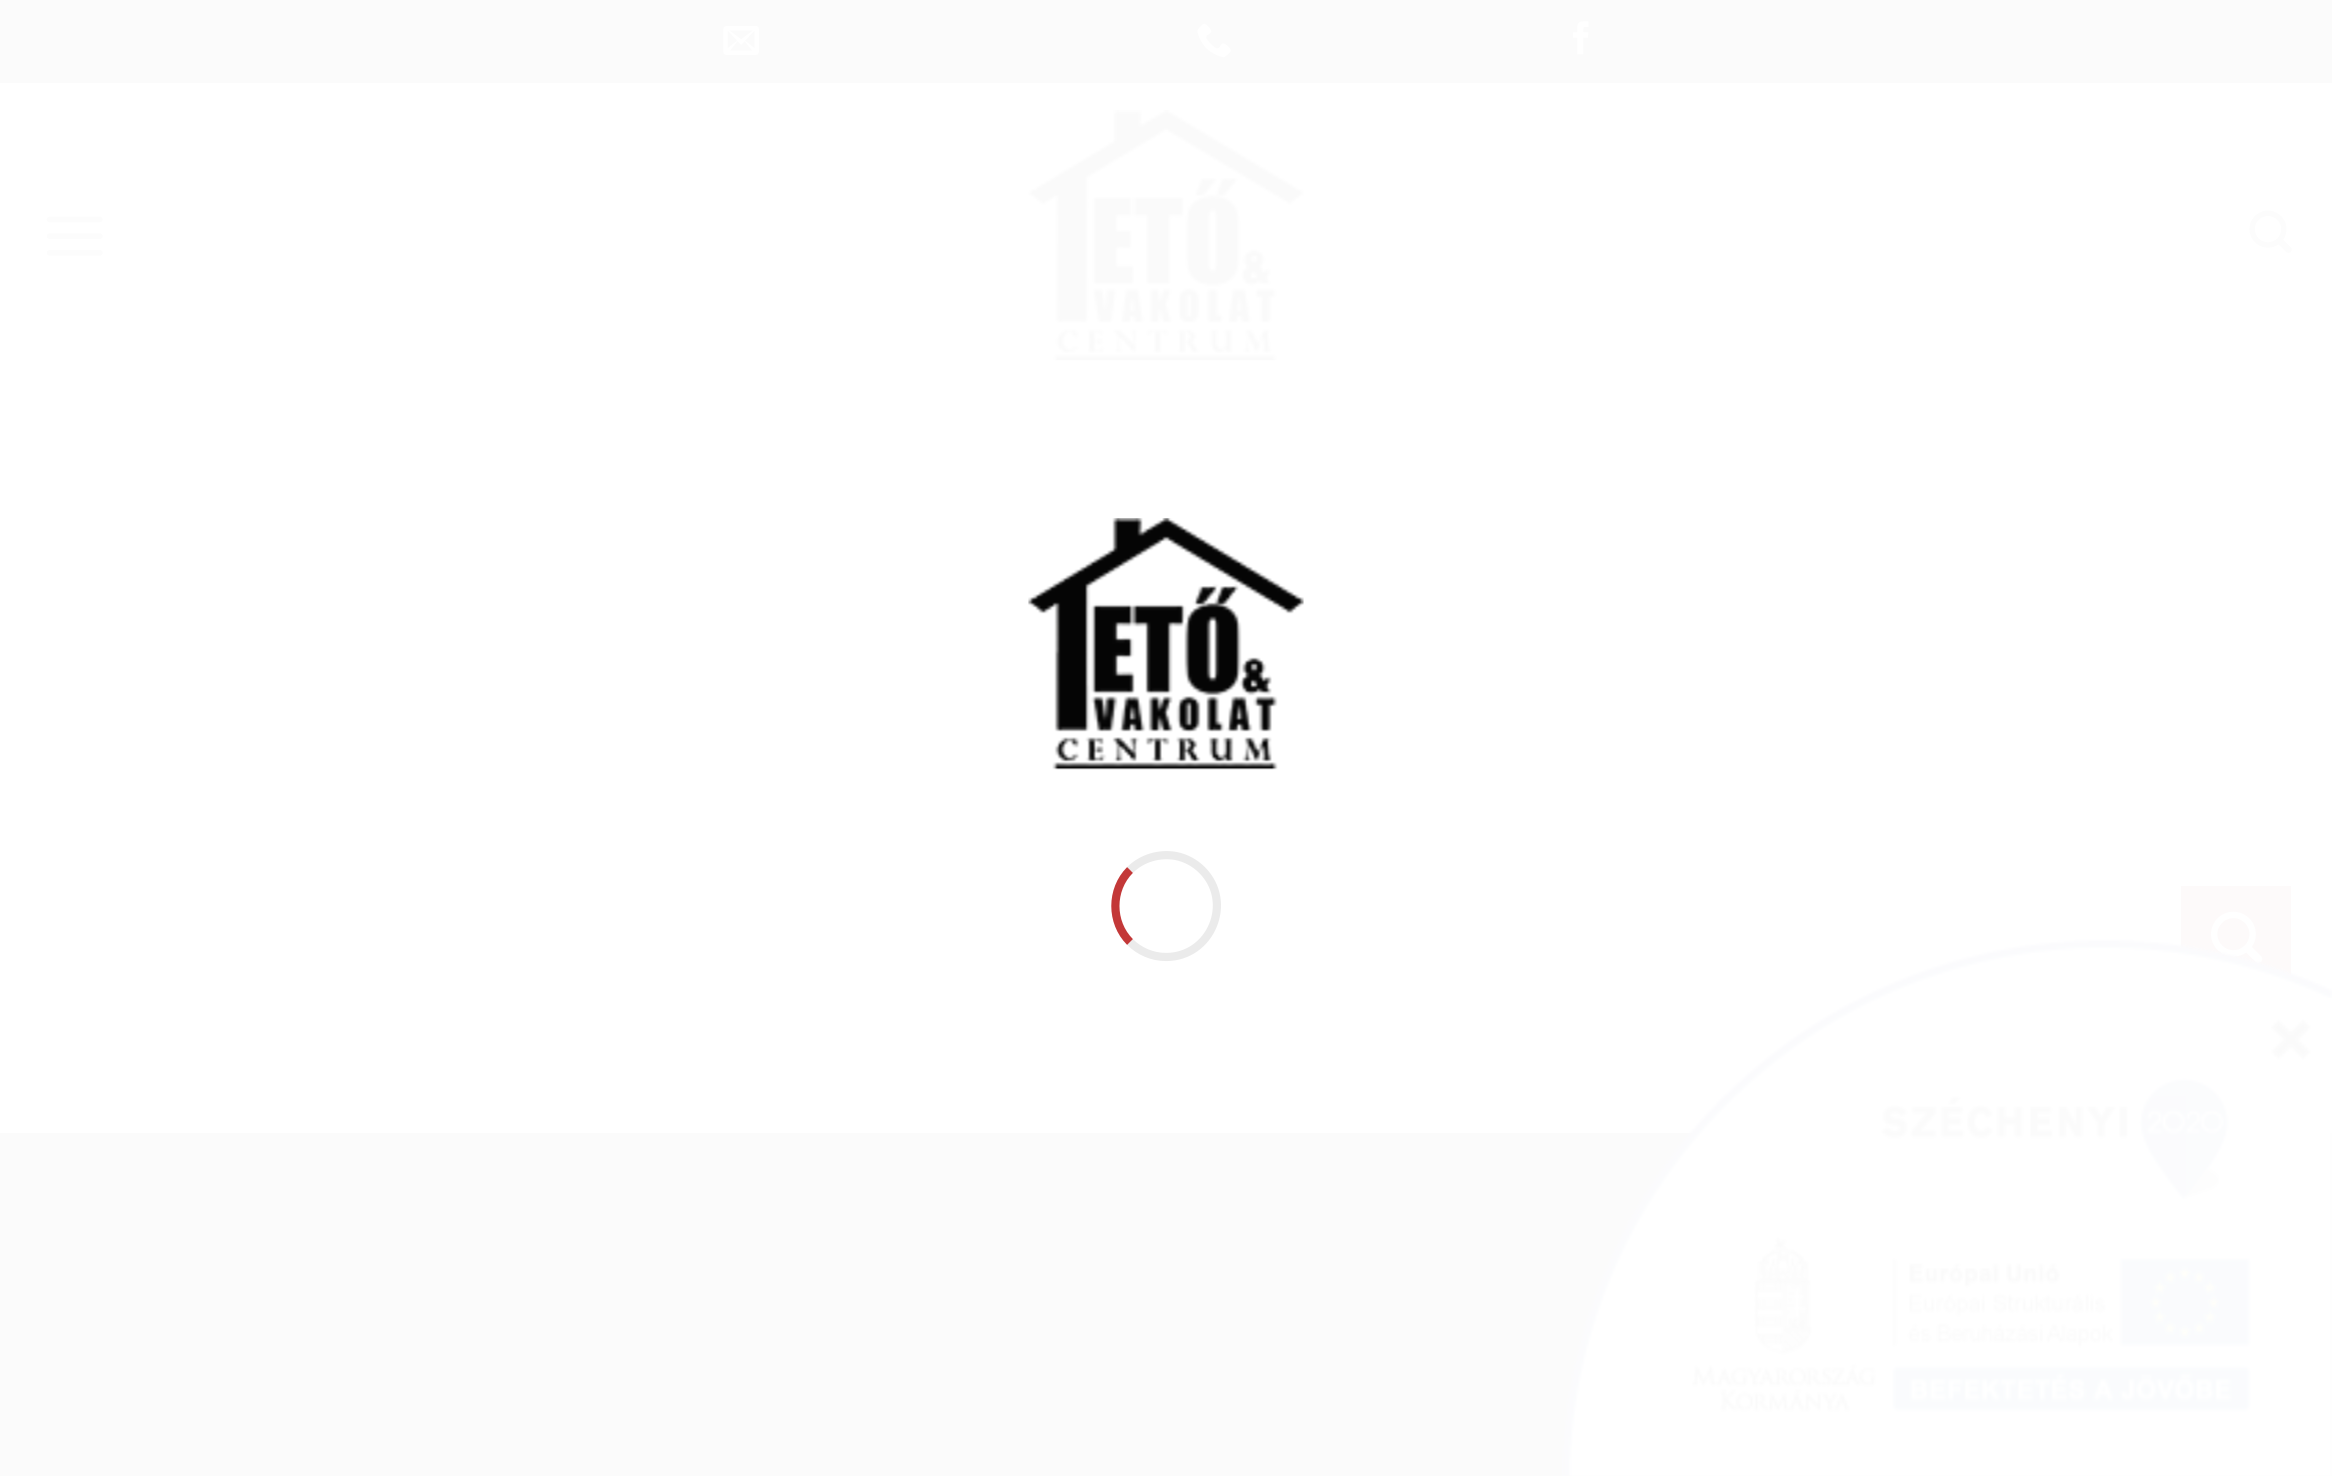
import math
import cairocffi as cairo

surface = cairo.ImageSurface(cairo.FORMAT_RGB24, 2332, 1476)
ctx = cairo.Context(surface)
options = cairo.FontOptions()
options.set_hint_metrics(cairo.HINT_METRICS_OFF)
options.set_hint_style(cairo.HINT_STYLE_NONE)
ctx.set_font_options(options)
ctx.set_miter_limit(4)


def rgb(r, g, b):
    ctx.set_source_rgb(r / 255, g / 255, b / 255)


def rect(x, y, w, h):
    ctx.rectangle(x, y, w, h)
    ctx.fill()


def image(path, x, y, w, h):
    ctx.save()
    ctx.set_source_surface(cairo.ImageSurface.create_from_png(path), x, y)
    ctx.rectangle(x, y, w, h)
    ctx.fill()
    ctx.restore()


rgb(251, 251, 251)
ctx.paint()
rgb(255, 255, 255)
rect(0, 83, 2332, 1050)
image('image0.png', 723, 25, 36, 30)
image('image1.png', 1197, 23, 34, 35)
image('image2.png', 1573, 21, 16, 34)
image('image3.png', 46, 216, 57, 40)
image('image4.png', 1028, 110, 276, 251)
image('image5.png', 2249, 210, 43, 43)
image('image6.png', 1028, 518, 276, 252)
ctx.new_path()
ctx.move_to(1130, 870)
ctx.curve_to(1142, 858, 1159.5, 853, 1176, 856)
ctx.curve_to(1186, 858, 1195, 863, 1202, 870)
ctx.curve_to(1234, 902, 1211, 957, 1166, 957)
ctx.curve_to(1152.5, 957, 1139.5, 951.5, 1130, 942)
rgb(235, 235, 235)
ctx.set_line_width(8.2)
ctx.stroke()
ctx.new_path()
ctx.move_to(1130, 942)
ctx.curve_to(1110.5, 922.5, 1110.5, 889.5, 1130, 870)
ctx.set_source_rgba(0.698, 0, 0, 0.78)
ctx.stroke()
rgb(253, 250, 250)
rect(2184, 889, 104, 88)
ctx.rectangle(2182.5, 887.5, 107, 104)
ctx.set_line_width(3)
ctx.stroke()
image('image7.png', 2211, 911, 52, 52)
image('image8.png', 1562, 939, 770, 537)
image('image9.png', 2270, 998, 62, 62)
surface.write_to_png('render.png')
